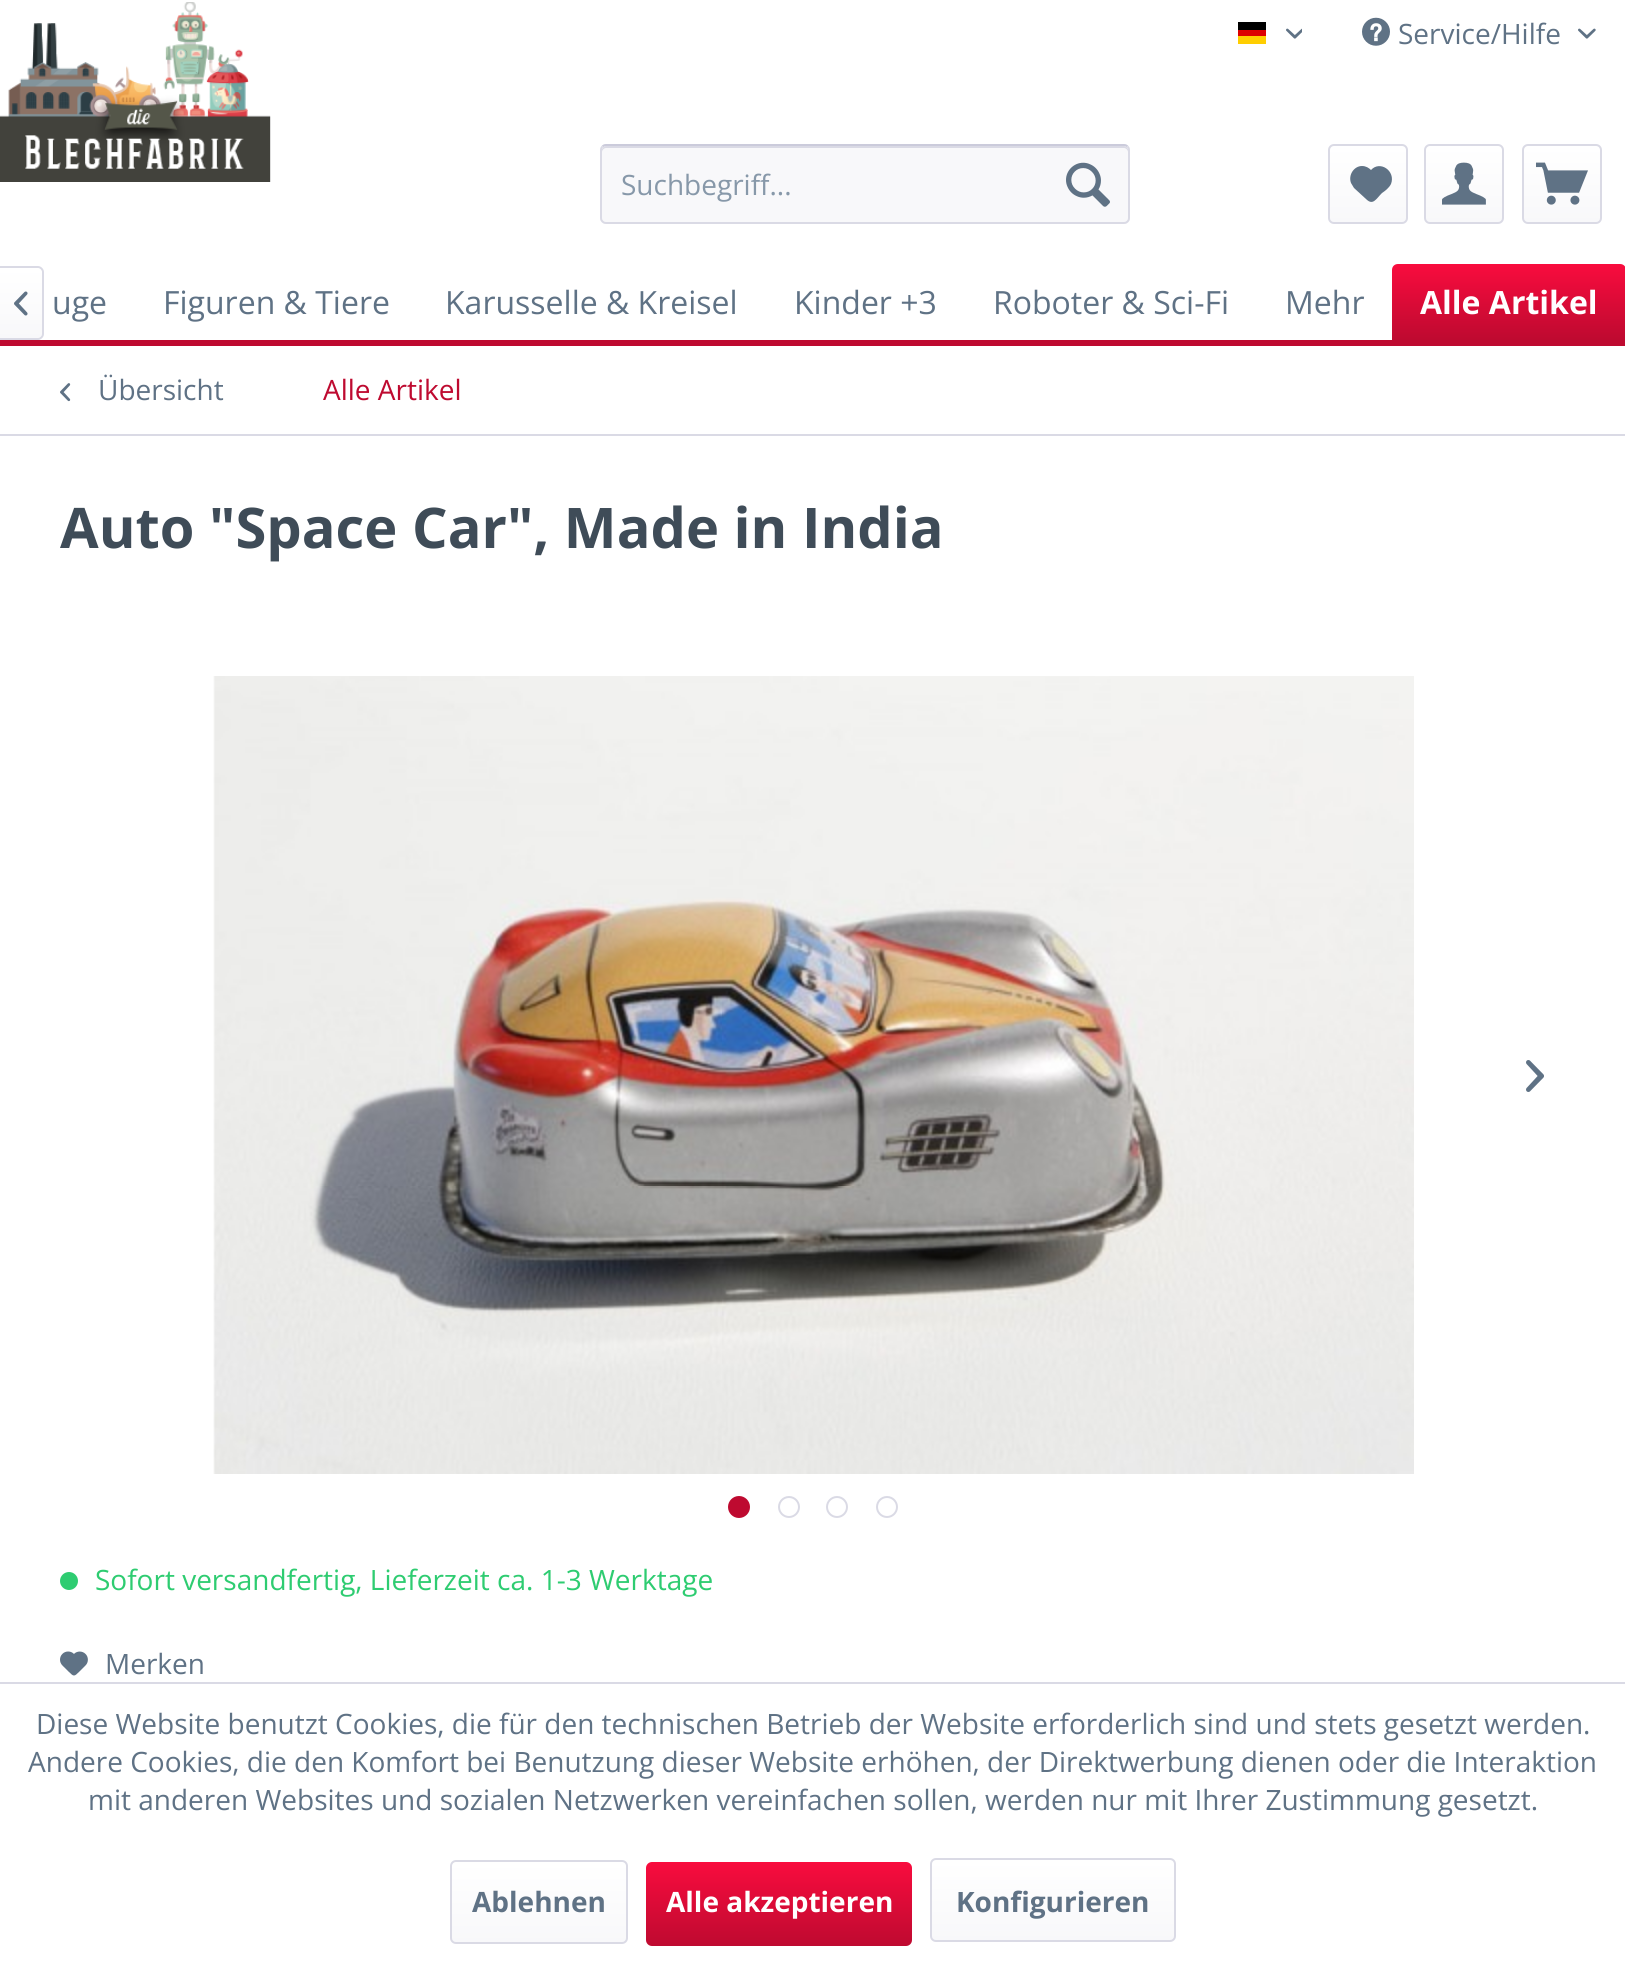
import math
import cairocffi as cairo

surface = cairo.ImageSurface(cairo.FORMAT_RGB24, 1625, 1965)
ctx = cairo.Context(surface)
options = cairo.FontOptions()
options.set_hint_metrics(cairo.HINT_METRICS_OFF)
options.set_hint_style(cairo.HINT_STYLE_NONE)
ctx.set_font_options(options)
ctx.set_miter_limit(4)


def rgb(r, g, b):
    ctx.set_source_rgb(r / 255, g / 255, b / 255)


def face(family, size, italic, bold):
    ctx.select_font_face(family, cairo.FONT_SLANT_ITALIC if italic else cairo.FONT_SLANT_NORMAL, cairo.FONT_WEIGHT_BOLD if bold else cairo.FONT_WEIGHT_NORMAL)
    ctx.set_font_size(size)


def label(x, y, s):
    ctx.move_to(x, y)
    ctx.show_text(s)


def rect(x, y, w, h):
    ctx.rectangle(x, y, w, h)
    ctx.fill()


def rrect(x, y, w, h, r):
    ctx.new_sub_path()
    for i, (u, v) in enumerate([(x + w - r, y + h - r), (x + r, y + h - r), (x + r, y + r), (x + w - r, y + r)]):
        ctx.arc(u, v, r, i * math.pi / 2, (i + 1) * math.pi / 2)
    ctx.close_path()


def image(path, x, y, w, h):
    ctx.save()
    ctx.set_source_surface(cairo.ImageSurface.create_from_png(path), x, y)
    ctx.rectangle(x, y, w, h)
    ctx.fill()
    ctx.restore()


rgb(255, 255, 255)
ctx.paint()
rgb(0, 0, 0)
rect(1238, 22, 28, 8)
rgb(221, 0, 0)
rect(1238, 30, 28, 6)
rgb(255, 206, 0)
rect(1238, 36, 28, 8)
image('image0.png', 1286, 28, 16, 11)
image('image1.png', 1362, 17, 28, 29)
face('Open Sans', 28, 0, 0)
rgb(95, 114, 133)
label(1398, 44, 'Service/Hilfe')
image('image2.png', 1578, 28, 18, 11)
image('image3.png', 0, 2, 271, 180)
rgb(248, 248, 250)
rrect(600, 144, 530, 80, 6)
ctx.fill()
rgb(218, 218, 229)
ctx.new_path()
ctx.move_to(606, 148)
ctx.line_to(1124, 148)
ctx.curve_to(1126, 148, 1128, 150, 1128, 152)
ctx.line_to(1128, 150)
ctx.curve_to(1128, 148, 1126, 146, 1124, 146)
ctx.line_to(606, 146)
ctx.curve_to(604, 146, 602, 148, 602, 150)
ctx.line_to(602, 152)
ctx.curve_to(602, 150, 604, 148, 606, 148)
ctx.close_path()
ctx.fill()
ctx.new_path()
ctx.move_to(602.5, 146.5)
ctx.curve_to(603.5, 145.5, 604.5, 145, 606, 145)
ctx.line_to(1124, 145)
ctx.curve_to(1125.5, 145, 1126.5, 145.5, 1127.5, 146.5)
rgb(203, 203, 219)
ctx.stroke()
ctx.new_path()
ctx.move_to(1127.5, 146.5)
ctx.curve_to(1128.5, 147.5, 1129, 148.5, 1129, 150)
ctx.line_to(1129, 218)
ctx.curve_to(1129, 219.5, 1128.5, 220.5, 1127.5, 221.5)
ctx.curve_to(1126.5, 222.5, 1125.5, 223, 1124, 223)
ctx.line_to(606, 223)
ctx.curve_to(604.5, 223, 603.5, 222.5, 602.5, 221.5)
ctx.curve_to(601.5, 220.5, 601, 219.5, 601, 218)
ctx.line_to(601, 150)
ctx.curve_to(601, 148.5, 601.5, 147.5, 602.5, 146.5)
rgb(218, 218, 229)
ctx.stroke()
rgb(135, 152, 169)
label(621, 195, 'Suchbegriff...')
image('image4.png', 1066, 162, 44, 45)
gradient = cairo.LinearGradient(1368, 146, 1368, 222)
gradient.add_color_stop_rgba(0, 1, 1, 1, 1)
gradient.add_color_stop_rgba(1, 0.973, 0.973, 0.98, 1)
ctx.set_source(gradient)
rrect(1330, 146, 76, 76, 4)
ctx.fill()
rrect(1329, 145, 78, 78, 5)
rgb(218, 218, 229)
ctx.stroke()
rgb(95, 114, 133)
ctx.new_path()
ctx.move_to(1362, 166)
ctx.curve_to(1354, 166, 1348, 175, 1351, 183)
ctx.line_to(1354, 188)
ctx.line_to(1366, 199)
ctx.curve_to(1373, 206, 1376, 199, 1382, 193)
ctx.curve_to(1385, 191, 1389, 188, 1391, 184)
ctx.curve_to(1396, 171, 1380, 160, 1371, 170)
ctx.curve_to(1369, 168, 1366, 166, 1362, 166)
ctx.close_path()
ctx.fill()
gradient = cairo.LinearGradient(1464, 146, 1464, 222)
gradient.add_color_stop_rgba(0, 1, 1, 1, 1)
gradient.add_color_stop_rgba(1, 0.973, 0.973, 0.98, 1)
ctx.set_source(gradient)
rrect(1426, 146, 76, 76, 4)
ctx.fill()
rrect(1425, 145, 78, 78, 5)
rgb(218, 218, 229)
ctx.stroke()
image('image5.png', 1442, 162, 44, 43)
gradient = cairo.LinearGradient(1562, 146, 1562, 222)
gradient.add_color_stop_rgba(0, 1, 1, 1, 1)
gradient.add_color_stop_rgba(1, 0.973, 0.973, 0.98, 1)
ctx.set_source(gradient)
rrect(1524, 146, 76, 76, 4)
ctx.fill()
rrect(1523, 145, 78, 78, 5)
rgb(218, 218, 229)
ctx.stroke()
image('image6.png', 1536, 162, 52, 43)
rgb(190, 10, 48)
rect(0, 340, 1625, 6)
gradient = cairo.LinearGradient(21, 268, 21, 338)
gradient.add_color_stop_rgba(0, 1, 1, 1, 1)
gradient.add_color_stop_rgba(1, 0.973, 0.973, 0.98, 1)
ctx.set_source(gradient)
ctx.new_path()
ctx.move_to(0, 268)
ctx.line_to(38, 268)
ctx.curve_to(40, 268, 42, 270, 42, 272)
ctx.line_to(42, 334)
ctx.curve_to(42, 336, 40, 338, 38, 338)
ctx.line_to(0, 338)
ctx.close_path()
ctx.fill()
rgb(218, 218, 229)
ctx.set_fill_rule(cairo.FILL_RULE_EVEN_ODD)
ctx.new_path()
ctx.move_to(0, 266)
ctx.line_to(38, 266)
ctx.curve_to(41, 266, 44, 269, 44, 272)
ctx.line_to(44, 334)
ctx.curve_to(44, 337, 41, 340, 38, 340)
ctx.line_to(0, 340)
ctx.close_path()
ctx.move_to(0, 268)
ctx.line_to(38, 268)
ctx.curve_to(40, 268, 42, 270, 42, 272)
ctx.line_to(42, 334)
ctx.curve_to(42, 336, 40, 338, 38, 338)
ctx.line_to(0, 338)
ctx.close_path()
ctx.fill()
image('image7.png', 14, 291, 14, 25)
face('Open Sans', 32, 0, 0)
rgb(95, 114, 133)
label(52, 314, 'uge')
label(163, 314, 'Figuren & Tiere')
label(445, 314, 'Karusselle & Kreisel')
label(794, 314, 'Kinder +3')
label(993, 314, 'Roboter & Sci-Fi')
label(1285, 314, 'Mehr')
gradient = cairo.LinearGradient(1509, 264, 1509, 340)
gradient.add_color_stop_rgba(0, 0.976, 0.047, 0.243, 1)
gradient.add_color_stop_rgba(1, 0.745, 0.039, 0.188, 1)
ctx.set_source(gradient)
ctx.new_path()
ctx.move_to(1398, 264)
ctx.line_to(1620, 264)
ctx.curve_to(1623.5, 264, 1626, 266.5, 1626, 270)
ctx.line_to(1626, 340)
ctx.line_to(1392, 340)
ctx.line_to(1392, 270)
ctx.curve_to(1392, 266.5, 1394.5, 264, 1398, 264)
ctx.close_path()
ctx.fill()
face('Open Sans', 32, 0, 1)
rgb(255, 255, 255)
label(1420, 314, 'Alle Artikel')
rgb(218, 218, 229)
rect(0, 434, 1625, 2)
image('image8.png', 60, 383, 11, 19)
face('Open Sans', 28, 0, 0)
rgb(95, 114, 133)
label(98, 400, 'Übersicht')
rgb(190, 10, 48)
label(323, 400, 'Alle Artikel')
face('Open Sans', 56, 0, 1)
rgb(63, 76, 88)
label(60, 548, 'Auto "Space Car", Made in India')
image('image9.png', 213, 676, 1201, 798)
image('image10.png', 1526, 1060, 18, 32)
rgb(190, 10, 48)
ctx.arc(739, 1507, 10, 0, 2 * math.pi)
ctx.fill_preserve()
ctx.stroke()
ctx.arc(789, 1507, 10, 0, 2 * math.pi)
rgb(218, 218, 229)
ctx.stroke()
ctx.arc(837, 1507, 10, 0, 2 * math.pi)
ctx.stroke()
ctx.arc(887, 1507, 10, 0, 2 * math.pi)
ctx.stroke()
rgb(46, 204, 113)
ctx.arc(69, 1581, 9, 0, 2 * math.pi)
ctx.fill()
face('Open Sans', 28, 0, 0)
label(95, 1590, 'Sofort versandfertig, Lieferzeit ca. 1-3 Werktage')
image('image11.png', 60, 1651, 28, 25)
rgb(95, 114, 133)
label(105, 1674, 'Merken')
rgb(218, 218, 229)
rect(0, 1682, 1625, 2)
rgb(95, 114, 133)
label(36, 1734, 'Diese Website benutzt Cookies, die für den technischen Betrieb der Website erforderlich sind und stets gesetzt werden.')
label(28, 1772, 'Andere Cookies, die den Komfort bei Benutzung dieser Website erhöhen, der Direktwerbung dienen oder die Interaktion')
label(88, 1810, 'mit anderen Websites und sozialen Netzwerken vereinfachen sollen, werden nur mit Ihrer Zustimmung gesetzt.')
gradient = cairo.LinearGradient(539, 1862, 539, 1942)
gradient.add_color_stop_rgba(0, 1, 1, 1, 1)
gradient.add_color_stop_rgba(1, 0.973, 0.973, 0.98, 1)
ctx.set_source(gradient)
rrect(452, 1862, 174, 80, 4)
ctx.fill()
rrect(451, 1861, 176, 82, 5)
rgb(218, 218, 229)
ctx.stroke()
face('Open Sans', 28, 0, 1)
rgb(95, 114, 133)
label(472, 1912, 'Ablehnen')
gradient = cairo.LinearGradient(779, 1862, 779, 1946)
gradient.add_color_stop_rgba(0, 0.976, 0.047, 0.243, 1)
gradient.add_color_stop_rgba(1, 0.745, 0.039, 0.188, 1)
ctx.set_source(gradient)
rrect(646, 1862, 266, 84, 6)
ctx.fill()
rgb(255, 255, 255)
label(666, 1912, 'Alle akzeptieren')
gradient = cairo.LinearGradient(1053, 1860, 1053, 1940)
gradient.add_color_stop_rgba(0, 1, 1, 1, 1)
gradient.add_color_stop_rgba(1, 0.973, 0.973, 0.98, 1)
ctx.set_source(gradient)
rrect(932, 1860, 242, 80, 4)
ctx.fill()
rrect(931, 1859, 244, 82, 5)
rgb(218, 218, 229)
ctx.stroke()
rgb(95, 114, 133)
label(956, 1912, 'Konfigurieren')
surface.write_to_png('render.png')
